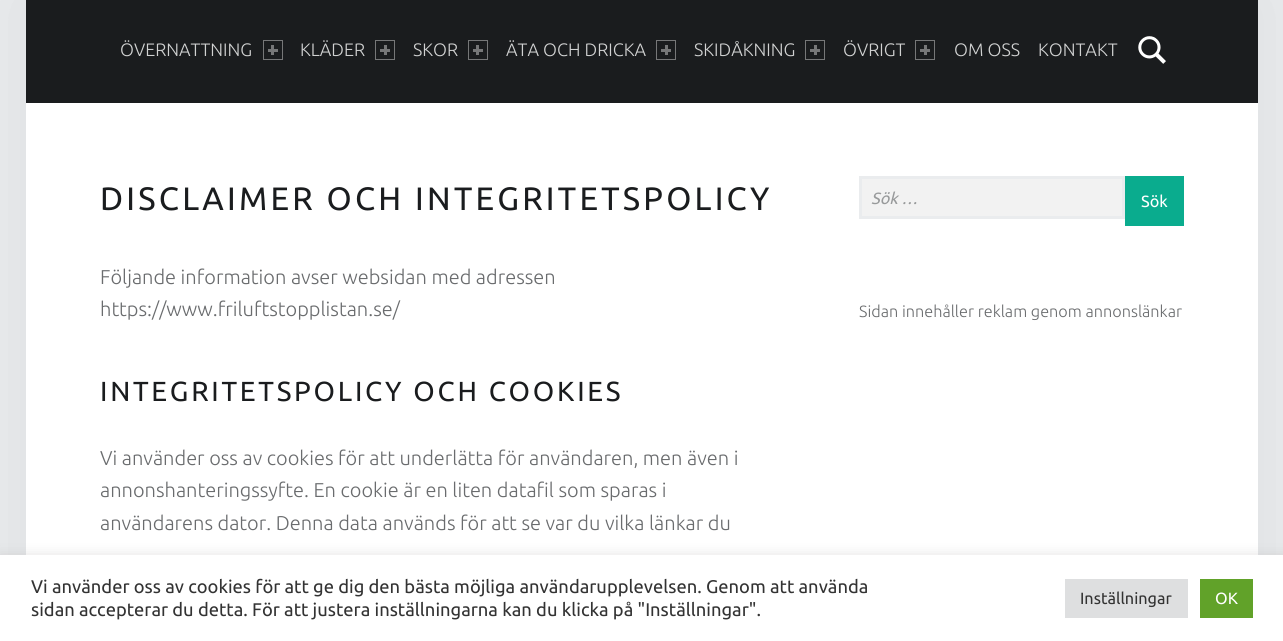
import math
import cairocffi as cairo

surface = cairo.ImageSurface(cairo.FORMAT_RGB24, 1283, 641)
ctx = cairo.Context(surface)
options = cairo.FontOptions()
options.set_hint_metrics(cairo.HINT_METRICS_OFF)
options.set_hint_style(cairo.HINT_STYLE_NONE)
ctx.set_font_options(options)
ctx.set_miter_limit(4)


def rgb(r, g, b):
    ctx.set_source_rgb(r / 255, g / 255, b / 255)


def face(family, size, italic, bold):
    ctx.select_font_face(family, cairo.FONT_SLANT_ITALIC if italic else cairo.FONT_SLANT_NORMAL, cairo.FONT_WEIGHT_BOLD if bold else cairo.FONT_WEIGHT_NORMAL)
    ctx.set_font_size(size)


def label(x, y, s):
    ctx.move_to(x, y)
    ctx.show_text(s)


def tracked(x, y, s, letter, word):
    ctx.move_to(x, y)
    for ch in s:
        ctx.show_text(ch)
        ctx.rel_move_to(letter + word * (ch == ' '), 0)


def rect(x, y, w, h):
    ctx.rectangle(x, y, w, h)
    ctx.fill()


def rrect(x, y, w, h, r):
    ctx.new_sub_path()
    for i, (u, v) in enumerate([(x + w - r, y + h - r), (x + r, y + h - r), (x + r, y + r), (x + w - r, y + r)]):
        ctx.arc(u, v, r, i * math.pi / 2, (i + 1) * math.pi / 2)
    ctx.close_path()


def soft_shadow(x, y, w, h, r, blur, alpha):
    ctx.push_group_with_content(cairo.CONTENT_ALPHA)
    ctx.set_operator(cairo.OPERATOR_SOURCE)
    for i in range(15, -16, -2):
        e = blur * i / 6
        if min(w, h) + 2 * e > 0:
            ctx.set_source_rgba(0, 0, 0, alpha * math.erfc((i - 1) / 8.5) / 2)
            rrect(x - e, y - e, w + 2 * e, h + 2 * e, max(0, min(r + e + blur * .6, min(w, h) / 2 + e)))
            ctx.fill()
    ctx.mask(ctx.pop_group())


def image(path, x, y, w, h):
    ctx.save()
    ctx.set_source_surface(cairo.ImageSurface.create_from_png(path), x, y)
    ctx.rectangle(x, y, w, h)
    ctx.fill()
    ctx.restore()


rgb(234, 236, 238)
ctx.paint()
rgb(0, 0, 0)
soft_shadow(26, 0, 1232, 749, 0, 36, 0.07)
rgb(255, 255, 255)
rect(26, 103, 1232, 452)
rgb(26, 28, 30)
rect(26, 0, 1232, 103)
face('Ubuntu Light', 18, 0, 0)
rgb(209, 210, 210)
label(120, 56, 'ÖVERNATTNING')
ctx.rectangle(263.5, 40.5, 19, 19)
rgb(118, 119, 120)
ctx.set_line_width(1)
ctx.stroke()
rect(268, 49, 10, 3)
rect(271, 45, 3, 10)
rgb(209, 210, 210)
label(300, 56, 'KLÄDER')
ctx.rectangle(375.5, 40.5, 19, 19)
rgb(118, 119, 120)
ctx.stroke()
rect(380, 49, 10, 3)
rect(384, 45, 3, 10)
rgb(209, 210, 210)
label(413, 56, 'SKOR')
ctx.rectangle(468.5, 40.5, 19, 19)
rgb(118, 119, 120)
ctx.stroke()
rect(473, 49, 10, 3)
rect(476, 45, 3, 10)
rgb(209, 210, 210)
label(506, 56, 'ÄTA OCH DRICKA')
ctx.rectangle(656.5, 40.5, 19, 19)
rgb(118, 119, 120)
ctx.stroke()
rect(661, 49, 10, 3)
rect(665, 45, 3, 10)
rgb(209, 210, 210)
label(694, 56, 'SKIDÅKNING')
ctx.rectangle(805.5, 40.5, 19, 19)
rgb(118, 119, 120)
ctx.stroke()
rect(810, 49, 10, 3)
rect(814, 45, 3, 10)
rgb(209, 210, 210)
label(843, 56, 'ÖVRIGT')
ctx.rectangle(915.5, 40.5, 19, 19)
rgb(118, 119, 120)
ctx.stroke()
rect(920, 49, 10, 3)
rect(924, 45, 3, 10)
rgb(209, 210, 210)
label(954, 56, 'OM OSS')
label(1038, 56, 'KONTAKT')
image('image0.png', 1138, 36, 28, 28)
face('Ubuntu', 32.4, 0, 0)
rgb(26, 28, 30)
tracked(100, 210, 'DISCLAIMER OCH INTEGRITETSPOLICY', 3.25, 0)
face('Ubuntu Light', 20, 0, 0)
rgb(106, 108, 110)
label(100, 284, 'Följande information avser websidan med adressen')
label(100, 316, 'https://www.friluftstopplistan.se/')
face('Ubuntu', 27.6, 0, 0)
rgb(26, 28, 30)
tracked(100, 401, 'INTEGRITETSPOLICY OCH COOKIES', 2.75, 0)
face('Ubuntu Light', 20, 0, 0)
rgb(106, 108, 110)
label(100, 465, 'Vi använder oss av cookies för att underlätta för användaren, men även i')
label(100, 497, 'annonshanteringssyfte. En cookie är en liten datafil som sparas i')
label(100, 530, 'användarens dator. Denna data används för att se var du vilka länkar du')
rgb(242, 242, 242)
ctx.rectangle(860.5, 177.5, 263, 40)
ctx.fill_preserve()
rgb(234, 236, 238)
ctx.set_line_width(3)
ctx.stroke()
face('Ubuntu', 16.25, 1, 0)
rgb(152, 154, 155)
label(871, 204, 'Sök …')
rgb(10, 172, 142)
rect(1125, 176, 59, 50)
face('Ubuntu', 16.25, 0, 0)
rgb(255, 255, 255)
label(1141, 207, 'Sök')
face('Ubuntu Light', 16.25, 0, 0)
rgb(106, 108, 110)
label(859, 317, 'Sidan innehåller reklam genom annonslänkar')
rgb(172, 171, 171)
soft_shadow(0, 554, 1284, 86, 0, 6, 0.3)
rgb(255, 255, 255)
rect(0, 555, 1283, 86)
face('Ubuntu', 18.35, 0, 0)
rgb(51, 51, 51)
label(31, 593, 'Vi använder oss av cookies för att ge dig den bästa möjliga användarupplevelsen. Genom att använda')
label(31, 616, 'sidan accepterar du detta. För att justera inställningarna kan du klicka på "Inställningar".')
rgb(222, 223, 224)
rect(1065, 579, 123, 39)
face('Ubuntu', 16.25, 0, 0)
rgb(51, 51, 51)
label(1080, 604, 'Inställningar')
rgb(97, 162, 41)
rect(1200, 579, 53, 39)
rgb(255, 255, 255)
label(1215, 604, 'OK')
surface.write_to_png('render.png')
